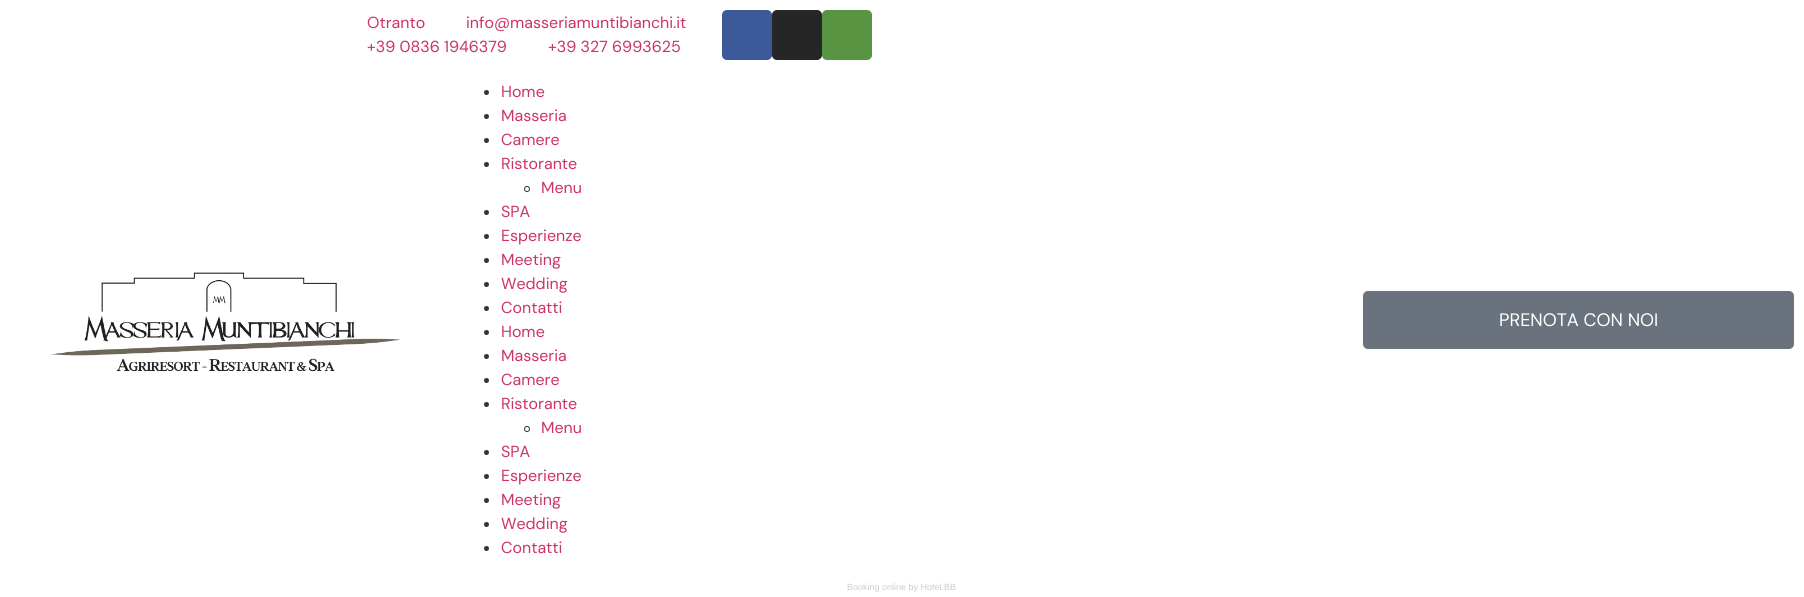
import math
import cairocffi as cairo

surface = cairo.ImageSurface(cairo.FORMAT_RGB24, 1804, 597)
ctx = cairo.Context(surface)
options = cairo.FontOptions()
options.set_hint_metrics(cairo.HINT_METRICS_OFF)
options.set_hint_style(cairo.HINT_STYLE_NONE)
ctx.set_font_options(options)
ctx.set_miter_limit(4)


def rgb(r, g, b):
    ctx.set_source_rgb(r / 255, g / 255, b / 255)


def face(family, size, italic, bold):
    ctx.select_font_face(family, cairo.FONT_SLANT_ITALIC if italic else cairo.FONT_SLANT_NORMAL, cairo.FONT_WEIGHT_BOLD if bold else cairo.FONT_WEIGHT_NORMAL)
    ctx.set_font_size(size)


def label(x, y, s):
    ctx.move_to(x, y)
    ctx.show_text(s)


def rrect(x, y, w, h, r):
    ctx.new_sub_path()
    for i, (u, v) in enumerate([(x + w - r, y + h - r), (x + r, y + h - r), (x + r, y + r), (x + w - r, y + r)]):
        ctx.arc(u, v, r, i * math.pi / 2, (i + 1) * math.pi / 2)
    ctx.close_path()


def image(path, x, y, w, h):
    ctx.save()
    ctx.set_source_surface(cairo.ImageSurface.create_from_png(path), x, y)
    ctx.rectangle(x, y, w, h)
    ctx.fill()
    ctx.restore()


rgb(255, 255, 255)
ctx.paint()
face('DM Sans', 16, 0, 0)
rgb(204, 51, 102)
label(367, 28, 'Otranto')
label(466, 28, 'info@masseriamuntibianchi.it')
label(367, 52, '+39 0836 1946379')
label(548, 52, '+39 327 6993625')
rgb(59, 89, 152)
rrect(722, 10, 50, 50, 5)
ctx.fill()
rgb(38, 38, 38)
rrect(772, 10, 50, 50, 5)
ctx.fill()
rgb(88, 148, 66)
rrect(822, 10, 50, 50, 5)
ctx.fill()
image('image0.png', 51, 272, 350, 100)
rgb(51, 51, 51)
ctx.arc(486.5, 92.5, 2.5, 0, 2 * math.pi)
ctx.fill()
rgb(204, 51, 102)
label(501, 97, 'Home')
rgb(51, 51, 51)
ctx.new_path()
ctx.arc(486.5, 116.5, 2.5, 0, 2 * math.pi)
ctx.fill()
rgb(204, 51, 102)
label(501, 121, 'Masseria')
rgb(51, 51, 51)
ctx.new_path()
ctx.arc(486.5, 140.5, 2.5, 0, 2 * math.pi)
ctx.fill()
rgb(204, 51, 102)
label(501, 145, 'Camere')
rgb(51, 51, 51)
ctx.new_path()
ctx.arc(486.5, 164.5, 2.5, 0, 2 * math.pi)
ctx.fill()
rgb(204, 51, 102)
label(501, 169, 'Ristorante')
ctx.new_path()
ctx.arc(527, 189, 2.5, 0, 2 * math.pi)
rgb(51, 51, 51)
ctx.set_line_width(1)
ctx.stroke()
rgb(204, 51, 102)
label(541, 193, 'Menu')
rgb(51, 51, 51)
ctx.new_path()
ctx.arc(486.5, 212.5, 2.5, 0, 2 * math.pi)
ctx.fill()
rgb(204, 51, 102)
label(501, 217, 'SPA')
rgb(51, 51, 51)
ctx.new_path()
ctx.arc(486.5, 236.5, 2.5, 0, 2 * math.pi)
ctx.fill()
rgb(204, 51, 102)
label(501, 241, 'Esperienze')
rgb(51, 51, 51)
ctx.new_path()
ctx.arc(486.5, 260.5, 2.5, 0, 2 * math.pi)
ctx.fill()
rgb(204, 51, 102)
label(501, 265, 'Meeting')
rgb(51, 51, 51)
ctx.new_path()
ctx.arc(486.5, 284.5, 2.5, 0, 2 * math.pi)
ctx.fill()
rgb(204, 51, 102)
label(501, 289, 'Wedding')
rgb(51, 51, 51)
ctx.new_path()
ctx.arc(486.5, 308.5, 2.5, 0, 2 * math.pi)
ctx.fill()
rgb(204, 51, 102)
label(501, 313, 'Contatti')
rgb(51, 51, 51)
ctx.new_path()
ctx.arc(486.5, 332.5, 2.5, 0, 2 * math.pi)
ctx.fill()
rgb(204, 51, 102)
label(501, 337, 'Home')
rgb(51, 51, 51)
ctx.new_path()
ctx.arc(486.5, 356.5, 2.5, 0, 2 * math.pi)
ctx.fill()
rgb(204, 51, 102)
label(501, 361, 'Masseria')
rgb(51, 51, 51)
ctx.new_path()
ctx.arc(486.5, 380.5, 2.5, 0, 2 * math.pi)
ctx.fill()
rgb(204, 51, 102)
label(501, 385, 'Camere')
rgb(51, 51, 51)
ctx.new_path()
ctx.arc(486.5, 404.5, 2.5, 0, 2 * math.pi)
ctx.fill()
rgb(204, 51, 102)
label(501, 409, 'Ristorante')
ctx.new_path()
ctx.arc(527, 429, 2.5, 0, 2 * math.pi)
rgb(51, 51, 51)
ctx.stroke()
rgb(204, 51, 102)
label(541, 433, 'Menu')
rgb(51, 51, 51)
ctx.new_path()
ctx.arc(486.5, 452.5, 2.5, 0, 2 * math.pi)
ctx.fill()
rgb(204, 51, 102)
label(501, 457, 'SPA')
rgb(51, 51, 51)
ctx.new_path()
ctx.arc(486.5, 476.5, 2.5, 0, 2 * math.pi)
ctx.fill()
rgb(204, 51, 102)
label(501, 481, 'Esperienze')
rgb(51, 51, 51)
ctx.new_path()
ctx.arc(486.5, 500.5, 2.5, 0, 2 * math.pi)
ctx.fill()
rgb(204, 51, 102)
label(501, 505, 'Meeting')
rgb(51, 51, 51)
ctx.new_path()
ctx.arc(486.5, 524.5, 2.5, 0, 2 * math.pi)
ctx.fill()
rgb(204, 51, 102)
label(501, 529, 'Wedding')
rgb(51, 51, 51)
ctx.new_path()
ctx.arc(486.5, 548.5, 2.5, 0, 2 * math.pi)
ctx.fill()
rgb(204, 51, 102)
label(501, 553, 'Contatti')
rgb(105, 114, 125)
rrect(1363, 291, 431, 58, 5)
ctx.fill()
face('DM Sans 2', 18, 0, 0)
rgb(255, 255, 255)
label(1499, 326, 'PRENOTA CON NOI')
face('Liberation Sans', 9, 0, 0)
rgb(204, 204, 204)
label(847, 590, 'Booking online by Hotel.BB')
surface.write_to_png('render.png')
